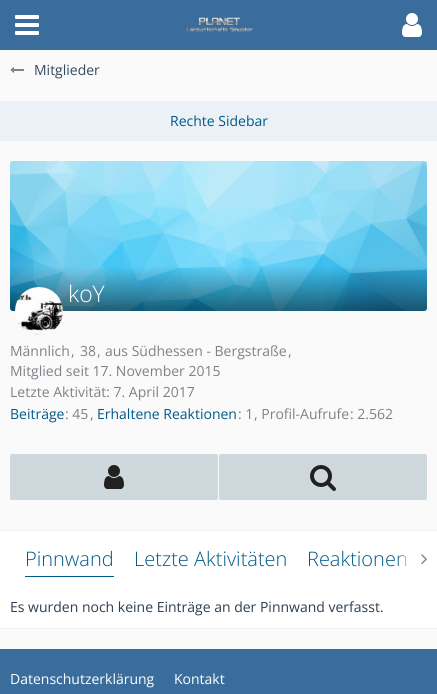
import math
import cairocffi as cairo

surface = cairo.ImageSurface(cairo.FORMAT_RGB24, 437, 694)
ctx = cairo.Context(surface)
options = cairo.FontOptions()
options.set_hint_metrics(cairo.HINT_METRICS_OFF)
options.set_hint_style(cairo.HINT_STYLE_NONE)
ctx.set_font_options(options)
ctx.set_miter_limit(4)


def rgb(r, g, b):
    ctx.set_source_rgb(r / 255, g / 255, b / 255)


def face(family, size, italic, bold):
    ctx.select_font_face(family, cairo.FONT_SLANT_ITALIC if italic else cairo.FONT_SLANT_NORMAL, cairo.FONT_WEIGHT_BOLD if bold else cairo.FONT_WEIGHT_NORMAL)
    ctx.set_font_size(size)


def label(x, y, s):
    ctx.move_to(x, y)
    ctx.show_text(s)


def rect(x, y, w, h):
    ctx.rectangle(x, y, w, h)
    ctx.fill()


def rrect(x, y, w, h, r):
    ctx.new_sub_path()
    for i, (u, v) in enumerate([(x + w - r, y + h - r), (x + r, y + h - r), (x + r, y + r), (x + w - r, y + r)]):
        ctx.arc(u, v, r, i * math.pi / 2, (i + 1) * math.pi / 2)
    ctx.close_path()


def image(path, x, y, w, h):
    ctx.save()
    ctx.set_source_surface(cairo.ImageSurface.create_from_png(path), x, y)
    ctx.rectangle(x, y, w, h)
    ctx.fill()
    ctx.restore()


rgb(250, 250, 250)
ctx.paint()
rgb(58, 109, 156)
rect(0, 0, 437, 50)
image('image0.png', 15, 15, 24, 20)
image('image1.png', 402, 13, 20, 24)
image('image2.png', 185, 17, 68, 16)
image('image3.png', 10, 67, 14, 6)
face('Open Sans', 14, 0, 0)
rgb(52, 73, 94)
label(34, 75, 'Mitglieder')
rgb(236, 241, 247)
rect(0, 101, 437, 40)
rgb(0, 89, 135)
label(170, 126, 'Rechte Sidebar')
image('image4.png', 10, 161, 417, 150)
gradient = cairo.LinearGradient(219, 161, 219, 311)
gradient.add_color_stop_rgba(0.7, 0, 0, 0, 0)
gradient.add_color_stop_rgba(1, 0, 0, 0, 0.5)
ctx.set_source(gradient)
ctx.new_path()
ctx.move_to(10, 161)
ctx.line_to(427, 161)
ctx.line_to(427, 308)
ctx.curve_to(427, 309.5, 425.5, 311, 424, 311)
ctx.line_to(13, 311)
ctx.curve_to(11.5, 311, 10, 309.5, 10, 308)
ctx.close_path()
ctx.fill()
face('Open Sans Light', 23, 0, 0)
rgb(255, 255, 255)
label(68, 302, 'koY')
face('Open Sans', 14, 0, 0)
rgb(125, 130, 135)
label(10, 356, 'Männlich')
label(71, 356, ',')
label(80, 356, '38')
label(97, 356, ',')
label(105, 356, 'aus Südhessen - Bergstraße')
label(288, 356, ',')
label(10, 376, 'Mitglied seit 17. November 2015')
label(10, 397, 'Letzte Aktivität: 7. April 2017')
rgb(0, 89, 135)
label(10, 419, 'Beiträge')
rgb(125, 130, 135)
label(65, 419, ': 45')
label(90, 419, ',')
rgb(0, 89, 135)
label(97, 419, 'Erhaltene Reaktionen')
rgb(125, 130, 135)
label(238, 419, ': 1')
label(254, 419, ', Profil-Aufrufe')
label(350, 419, ': 2.562')
image('image5.png', 15, 287, 48, 48)
rgb(207, 216, 220)
rrect(10, 454, 208, 46, 2)
ctx.fill()
image('image6.png', 104, 465, 20, 24)
rrect(219, 454, 208, 46, 2)
ctx.fill()
image('image7.png', 310, 465, 26, 26)
rgb(255, 255, 255)
rect(0, 531, 437, 97)
rgb(236, 241, 247)
rect(0, 530, 437, 1)
rect(0, 628, 437, 1)
face('Open Sans Light', 20, 0, 0)
rgb(0, 89, 135)
label(25, 566, 'Pinnwand')
rect(25, 576, 89, 1)
label(134, 566, 'Letzte Aktivitäten')
label(307, 566, 'Reaktionen')
gradient = cairo.LinearGradient(397, 559, 427, 559)
gradient.add_color_stop_rgba(0, 1, 1, 1, 0)
gradient.add_color_stop_rgba(0.5, 1, 1, 1, 1)
ctx.set_source(gradient)
rect(397, 555, 10, 11)
image('image8.png', 421, 554, 6, 11)
face('Open Sans', 14, 0, 0)
rgb(44, 62, 80)
label(10, 612, 'Es wurden noch keine Einträge an der Pinnwand verfasst.')
rgb(58, 109, 156)
rect(0, 649, 437, 45)
rgb(255, 255, 255)
label(10, 684, 'Datenschutzerklärung')
label(174, 684, 'Kontakt')
surface.write_to_png('render.png')
